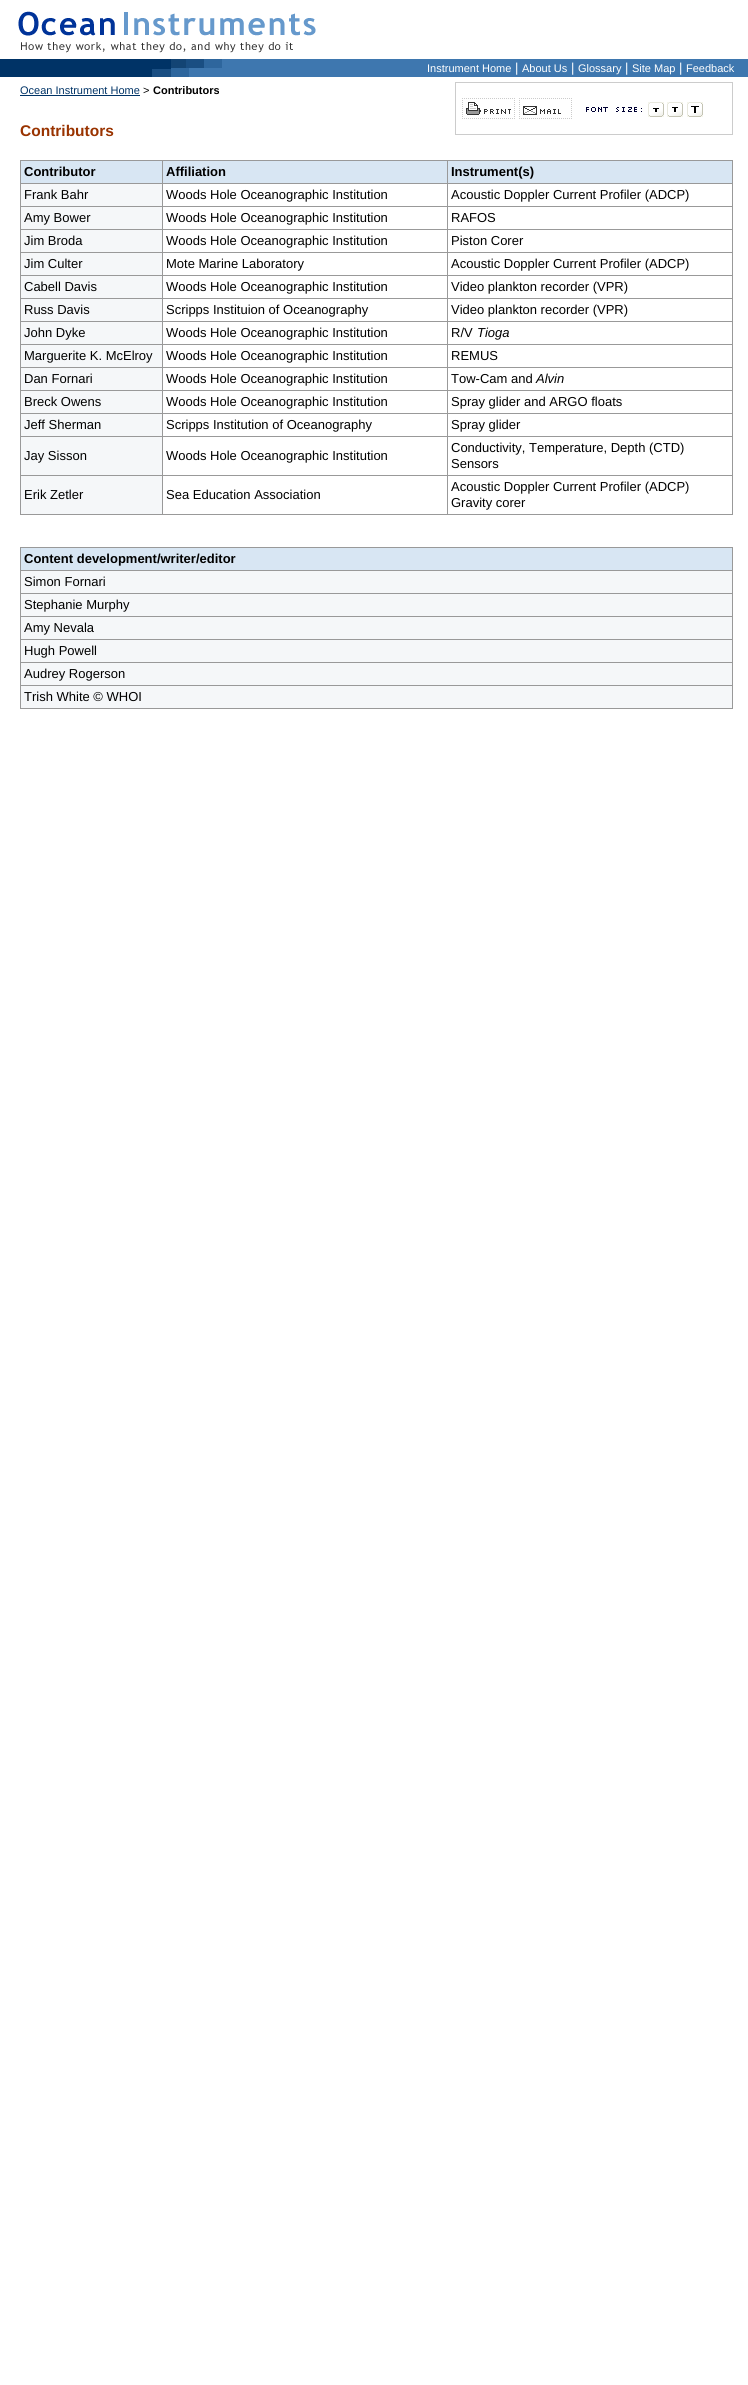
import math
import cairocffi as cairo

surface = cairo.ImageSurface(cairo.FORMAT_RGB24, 748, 2385)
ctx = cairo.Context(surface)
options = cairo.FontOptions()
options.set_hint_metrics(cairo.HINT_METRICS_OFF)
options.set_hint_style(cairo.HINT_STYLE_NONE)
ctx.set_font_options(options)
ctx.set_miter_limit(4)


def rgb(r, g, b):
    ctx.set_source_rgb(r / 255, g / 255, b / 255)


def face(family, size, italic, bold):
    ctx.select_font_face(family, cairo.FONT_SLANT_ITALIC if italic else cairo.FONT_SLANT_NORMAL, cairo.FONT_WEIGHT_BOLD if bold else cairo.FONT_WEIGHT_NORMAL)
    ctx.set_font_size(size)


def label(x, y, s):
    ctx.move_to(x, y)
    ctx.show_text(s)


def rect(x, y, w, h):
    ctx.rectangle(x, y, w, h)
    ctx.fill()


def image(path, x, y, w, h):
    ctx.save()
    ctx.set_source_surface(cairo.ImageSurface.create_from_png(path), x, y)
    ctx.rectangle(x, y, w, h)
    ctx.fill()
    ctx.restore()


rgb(255, 255, 255)
ctx.paint()
image('image0.png', 18, 11, 298, 42)
rgb(62, 119, 175)
rect(222, 59, 526, 18)
image('image1.png', 0, 59, 222, 18)
face('Liberation Sans', 11, 0, 0)
rgb(255, 255, 255)
label(427, 72, 'Instrument Home')
face('Liberation Sans', 13, 0, 0)
label(515, 72, '|')
face('Liberation Sans', 11, 0, 0)
label(522, 72, 'About Us')
face('Liberation Sans', 13, 0, 0)
label(571, 72, '|')
face('Liberation Sans', 11, 0, 0)
label(578, 72, 'Glossary')
face('Liberation Sans', 13, 0, 0)
label(625, 72, '|')
face('Liberation Sans', 11, 0, 0)
label(632, 72, 'Site Map')
face('Liberation Sans', 13, 0, 0)
label(679, 72, '|')
face('Liberation Sans', 11, 0, 0)
label(686, 72, 'Feedback')
rgb(0, 51, 102)
label(20, 94, 'Ocean Instrument Home')
rect(20, 95, 120, 1)
rgb(0, 0, 0)
label(143, 94, '>')
face('Liberation Sans', 11, 0, 1)
label(153, 94, 'Contributors')
ctx.rectangle(455.5, 82.5, 277, 52)
rgb(204, 204, 204)
ctx.set_line_width(1)
ctx.stroke()
image('image2.png', 462, 98, 53, 21)
image('image3.png', 519, 98, 53, 21)
rgb(0, 0, 0)
rect(653, 108, 6, 4)
image('image4.png', 648, 102, 16, 15)
rect(672, 107, 6, 5)
image('image5.png', 667, 102, 16, 15)
rect(691, 106, 8, 7)
image('image6.png', 687, 102, 16, 15)
image('image7.png', 586, 107, 56, 5)
face('Liberation Sans', 15.5, 0, 1)
rgb(153, 51, 0)
label(20, 136, 'Contributors')
rgb(153, 153, 153)
rect(20, 160, 713, 1)
rect(732, 160, 1, 355)
rect(20, 514, 713, 1)
rect(20, 160, 1, 355)
rgb(216, 230, 243)
rect(21, 161, 711, 22)
face('Liberation Sans', 13, 0, 1)
rgb(0, 0, 0)
label(24, 176, 'Contributor')
rgb(153, 153, 153)
rect(447, 183, 286, 1)
rect(447, 206, 286, 1)
rect(447, 229, 286, 1)
rect(447, 252, 286, 1)
rect(447, 275, 286, 1)
rect(447, 298, 286, 1)
rect(447, 321, 286, 1)
rect(447, 344, 286, 1)
rect(447, 367, 286, 1)
rect(447, 390, 286, 1)
rect(447, 413, 286, 1)
rect(447, 436, 286, 1)
rect(447, 475, 286, 1)
rect(447, 475, 1, 40)
rect(162, 475, 286, 1)
rect(447, 436, 1, 40)
rect(162, 436, 286, 1)
rect(447, 413, 1, 24)
rect(162, 413, 286, 1)
rect(447, 390, 1, 24)
rect(162, 390, 286, 1)
rect(447, 367, 1, 24)
rect(162, 367, 286, 1)
rect(447, 344, 1, 24)
rect(162, 344, 286, 1)
rect(447, 321, 1, 24)
rect(162, 321, 286, 1)
rect(447, 298, 1, 24)
rect(162, 298, 286, 1)
rect(447, 275, 1, 24)
rect(162, 275, 286, 1)
rect(447, 252, 1, 24)
rect(162, 252, 286, 1)
rect(447, 229, 1, 24)
rect(162, 229, 286, 1)
rect(447, 206, 1, 24)
rect(162, 206, 286, 1)
rect(447, 183, 1, 24)
rect(162, 183, 286, 1)
rect(162, 475, 1, 40)
rect(20, 475, 143, 1)
rect(162, 436, 1, 40)
rect(20, 436, 143, 1)
rect(162, 413, 1, 24)
rect(20, 413, 143, 1)
rect(162, 390, 1, 24)
rect(20, 390, 143, 1)
rect(162, 367, 1, 24)
rect(20, 367, 143, 1)
rect(162, 344, 1, 24)
rect(20, 344, 143, 1)
rect(162, 321, 1, 24)
rect(20, 321, 143, 1)
rect(162, 298, 1, 24)
rect(20, 298, 143, 1)
rect(162, 275, 1, 24)
rect(20, 275, 143, 1)
rect(162, 252, 1, 24)
rect(20, 252, 143, 1)
rect(162, 229, 1, 24)
rect(20, 229, 143, 1)
rect(162, 206, 1, 24)
rect(20, 206, 143, 1)
rect(162, 183, 1, 24)
rect(20, 183, 143, 1)
rect(162, 160, 1, 24)
rgb(0, 0, 0)
label(166, 176, 'Affiliation')
rgb(153, 153, 153)
rect(447, 160, 1, 24)
rgb(0, 0, 0)
label(451, 176, 'Instrument(s)')
rgb(245, 247, 249)
rect(21, 184, 141, 22)
face('Liberation Sans', 13, 0, 0)
rgb(0, 0, 0)
label(24, 199, 'Frank Bahr')
label(166, 199, 'Woods Hole Oceanographic Institution')
label(451, 199, 'Acoustic Doppler Current Profiler (ADCP)')
rgb(245, 247, 249)
rect(21, 207, 141, 22)
rgb(0, 0, 0)
label(24, 222, 'Amy Bower')
label(166, 222, 'Woods Hole Oceanographic Institution')
label(451, 222, 'RAFOS')
rgb(245, 247, 249)
rect(21, 230, 141, 22)
rgb(0, 0, 0)
label(24, 245, 'Jim Broda')
label(166, 245, 'Woods Hole Oceanographic Institution')
label(451, 245, 'Piston Corer')
rgb(245, 247, 249)
rect(21, 253, 141, 22)
rgb(0, 0, 0)
label(24, 268, 'Jim Culter')
label(166, 268, 'Mote Marine Laboratory')
label(451, 268, 'Acoustic Doppler Current Profiler (ADCP)')
rgb(245, 247, 249)
rect(21, 276, 141, 22)
rgb(0, 0, 0)
label(24, 291, 'Cabell Davis')
label(166, 291, 'Woods Hole Oceanographic Institution')
label(451, 291, 'Video plankton recorder (VPR)')
rgb(245, 247, 249)
rect(21, 299, 141, 22)
rgb(0, 0, 0)
label(24, 314, 'Russ Davis')
label(166, 314, 'Scripps Instituion of Oceanography')
label(451, 314, 'Video plankton recorder (VPR)')
rgb(245, 247, 249)
rect(21, 322, 141, 22)
rgb(0, 0, 0)
label(24, 337, 'John Dyke')
label(166, 337, 'Woods Hole Oceanographic Institution')
label(451, 337, 'R/V')
face('Liberation Sans', 13, 1, 0)
label(477, 337, 'Tioga')
rgb(245, 247, 249)
rect(21, 345, 141, 22)
face('Liberation Sans', 13, 0, 0)
rgb(0, 0, 0)
label(24, 360, 'Marguerite K. McElroy')
label(166, 360, 'Woods Hole Oceanographic Institution')
label(451, 360, 'REMUS')
rgb(245, 247, 249)
rect(21, 368, 141, 22)
rgb(0, 0, 0)
label(24, 383, 'Dan Fornari')
label(166, 383, 'Woods Hole Oceanographic Institution')
label(451, 383, 'Tow-Cam and')
face('Liberation Sans', 13, 1, 0)
label(536, 383, 'Alvin')
rgb(245, 247, 249)
rect(21, 391, 141, 22)
face('Liberation Sans', 13, 0, 0)
rgb(0, 0, 0)
label(24, 406, 'Breck Owens')
label(166, 406, 'Woods Hole Oceanographic Institution')
label(451, 406, 'Spray glider and ARGO floats')
rgb(245, 247, 249)
rect(21, 414, 141, 22)
rgb(0, 0, 0)
label(24, 429, 'Jeff Sherman')
label(166, 429, 'Scripps Institution of Oceanography')
label(451, 429, 'Spray glider')
rgb(245, 247, 249)
rect(21, 437, 141, 38)
rgb(0, 0, 0)
label(24, 460, 'Jay Sisson')
label(166, 460, 'Woods Hole Oceanographic Institution')
label(451, 452, 'Conductivity, Temperature, Depth (CTD)')
label(451, 468, 'Sensors')
rgb(245, 247, 249)
rect(21, 476, 141, 38)
rgb(0, 0, 0)
label(24, 499, 'Erik Zetler')
label(166, 499, 'Sea Education Association')
label(451, 491, 'Acoustic Doppler Current Profiler (ADCP)')
label(451, 507, 'Gravity corer')
rgb(153, 153, 153)
rect(20, 547, 713, 1)
rect(732, 547, 1, 162)
rect(20, 708, 713, 1)
rect(20, 547, 1, 162)
rgb(216, 230, 243)
rect(21, 548, 711, 22)
face('Liberation Sans', 13, 0, 1)
rgb(0, 0, 0)
label(24, 563, 'Content development/writer/editor')
rgb(245, 247, 249)
rect(21, 571, 711, 22)
rgb(153, 153, 153)
rect(20, 570, 713, 1)
face('Liberation Sans', 13, 0, 0)
rgb(0, 0, 0)
label(24, 586, 'Simon Fornari')
rgb(245, 247, 249)
rect(21, 594, 711, 22)
rgb(153, 153, 153)
rect(20, 593, 713, 1)
rgb(0, 0, 0)
label(24, 609, 'Stephanie Murphy')
rgb(245, 247, 249)
rect(21, 617, 711, 22)
rgb(153, 153, 153)
rect(20, 616, 713, 1)
rgb(0, 0, 0)
label(24, 632, 'Amy Nevala')
rgb(245, 247, 249)
rect(21, 640, 711, 22)
rgb(153, 153, 153)
rect(20, 639, 713, 1)
rgb(0, 0, 0)
label(24, 655, 'Hugh Powell')
rgb(245, 247, 249)
rect(21, 663, 711, 22)
rgb(153, 153, 153)
rect(20, 662, 713, 1)
rgb(0, 0, 0)
label(24, 678, 'Audrey Rogerson')
rgb(245, 247, 249)
rect(21, 686, 711, 22)
rgb(153, 153, 153)
rect(20, 685, 713, 1)
rgb(0, 0, 0)
label(24, 701, 'Trish White © WHOI')
surface.write_to_png('render.png')
